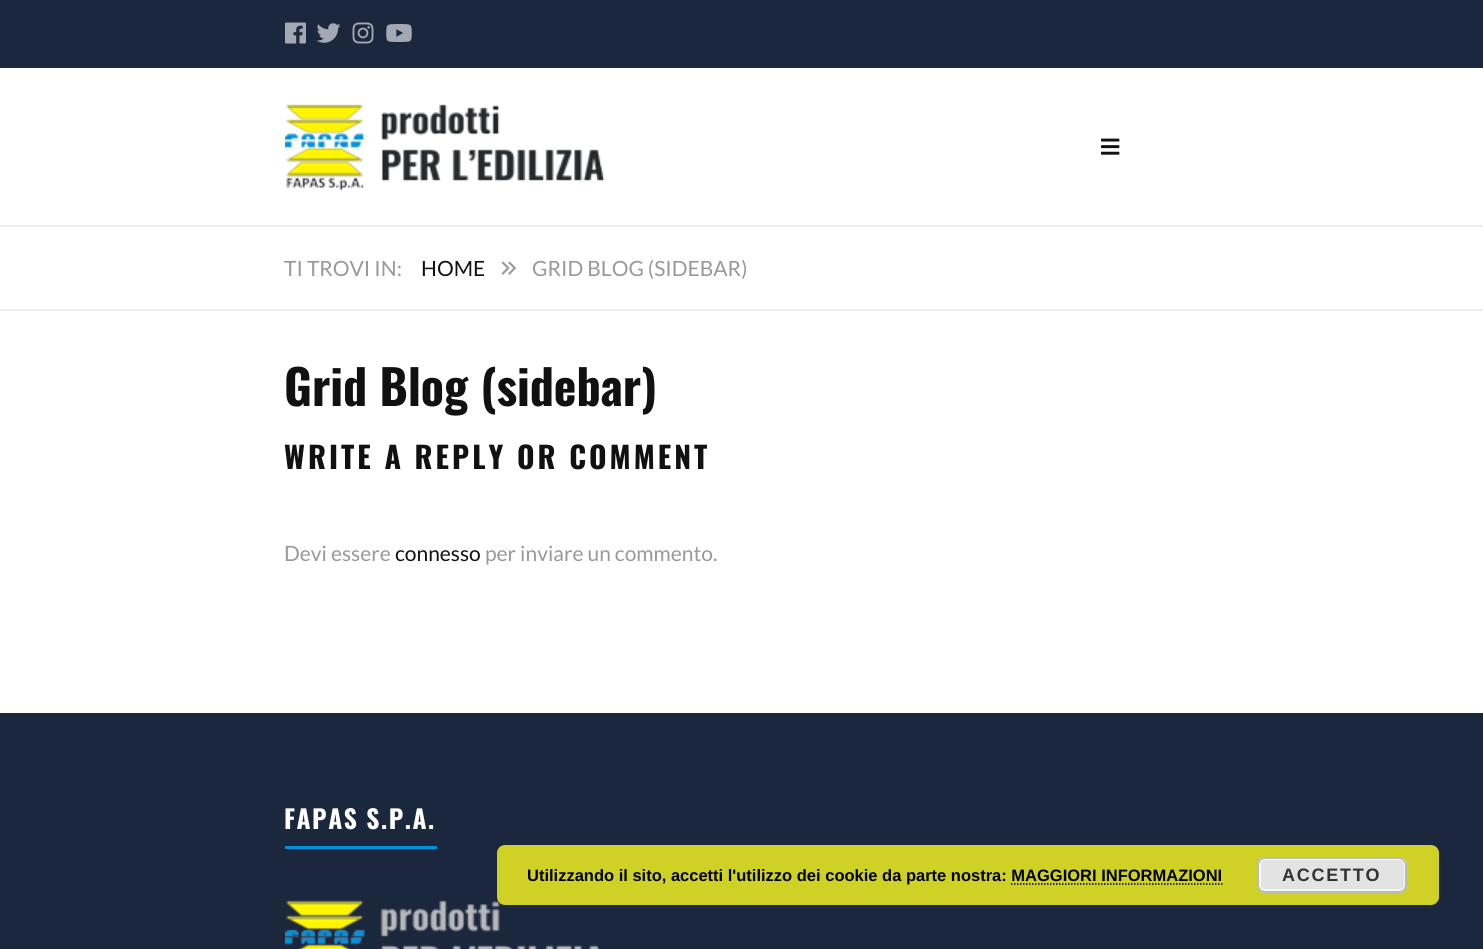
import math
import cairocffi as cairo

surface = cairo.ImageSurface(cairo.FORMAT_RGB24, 1483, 949)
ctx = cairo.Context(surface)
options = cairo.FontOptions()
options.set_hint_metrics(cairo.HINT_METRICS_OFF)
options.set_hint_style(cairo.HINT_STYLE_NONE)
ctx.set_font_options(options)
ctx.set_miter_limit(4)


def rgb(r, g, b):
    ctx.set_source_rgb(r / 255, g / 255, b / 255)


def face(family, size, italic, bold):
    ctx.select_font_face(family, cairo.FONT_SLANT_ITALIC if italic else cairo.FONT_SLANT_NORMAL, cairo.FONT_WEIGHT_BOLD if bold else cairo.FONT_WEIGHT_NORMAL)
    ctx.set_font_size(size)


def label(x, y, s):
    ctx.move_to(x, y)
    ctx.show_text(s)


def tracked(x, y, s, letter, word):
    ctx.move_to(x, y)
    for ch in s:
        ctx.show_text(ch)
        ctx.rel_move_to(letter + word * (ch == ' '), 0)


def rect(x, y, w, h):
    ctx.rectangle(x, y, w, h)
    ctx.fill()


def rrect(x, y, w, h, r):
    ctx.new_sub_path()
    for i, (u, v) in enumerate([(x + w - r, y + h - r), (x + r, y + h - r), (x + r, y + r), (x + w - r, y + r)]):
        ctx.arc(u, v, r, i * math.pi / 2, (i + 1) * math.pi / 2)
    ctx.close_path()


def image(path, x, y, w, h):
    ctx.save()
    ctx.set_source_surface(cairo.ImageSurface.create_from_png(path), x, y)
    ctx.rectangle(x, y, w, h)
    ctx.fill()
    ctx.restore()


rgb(255, 255, 255)
ctx.paint()
rgb(27, 39, 61)
rect(0, 0, 1483, 68)
image('image0.png', 285, 22, 21, 22)
image('image1.png', 316, 23, 25, 20)
image('image2.png', 352, 22, 22, 22)
image('image3.png', 386, 24, 26, 18)
image('image4.png', 285, 104, 320, 87)
image('image5.png', 1101, 138, 19, 17)
rgb(238, 238, 238)
rect(0, 225, 1483, 2)
rect(0, 309, 1483, 2)
face('Lato', 21, 0, 0)
rgb(153, 153, 153)
label(284, 276, 'TI TROVI IN:')
rgb(17, 17, 17)
label(421, 276, 'HOME')
image('image6.png', 501, 261, 15, 14)
rgb(153, 153, 153)
label(532, 276, 'GRID BLOG (SIDEBAR)')
face('Oswald', 48, 0, 1)
rgb(17, 17, 17)
label(284, 406, 'Grid Blog (sidebar)')
face('Oswald', 30, 0, 1)
tracked(284, 469, 'WRITE A REPLY OR COMMENT', 3, 0)
face('Lato', 21, 0, 0)
rgb(153, 153, 153)
label(284, 561, 'Devi essere')
rgb(17, 17, 17)
label(395, 561, 'connesso')
rgb(153, 153, 153)
label(485, 561, 'per inviare un commento.')
rgb(27, 39, 61)
rect(0, 713, 1483, 236)
face('Oswald', 25.5, 0, 1)
rgb(255, 255, 255)
tracked(284, 829, 'FAPAS S.P.A.', 1.5, 0)
rgb(0, 147, 221)
rect(285, 846, 152, 3)
image('image7.png', 285, 900, 314, 49)
ctx.set_source_rgba(0.933, 0.933, 0.133, 0.85)
rrect(497, 845, 942, 60, 8)
ctx.fill()
face('Liberation Sans', 16.5, 0, 1)
rgb(0, 0, 0)
label(527, 881, 'Utilizzando il sito, accetti l\'utilizzo dei cookie da parte nostra: MAGGIORI INFORMAZIONI')
rgb(227, 227, 227)
rrect(1257, 857, 150, 36, 8)
ctx.fill()
rrect(1260, 859, 145, 31, 5)
rgb(246, 246, 246)
ctx.stroke()
rrect(1258, 858, 148, 34, 7)
rgb(187, 187, 187)
ctx.stroke()
face('Liberation Sans', 18, 0, 1)
rgb(51, 51, 51)
tracked(1282, 881, 'ACCETTO', 1.75, 0)
ctx.new_path()
ctx.move_to(1011, 884)
ctx.line_to(1222.5, 884)
rgb(0, 0, 0)
ctx.set_line_width(1.5)
ctx.set_dash([1.5, 1.5])
ctx.stroke()
surface.write_to_png('render.png')
